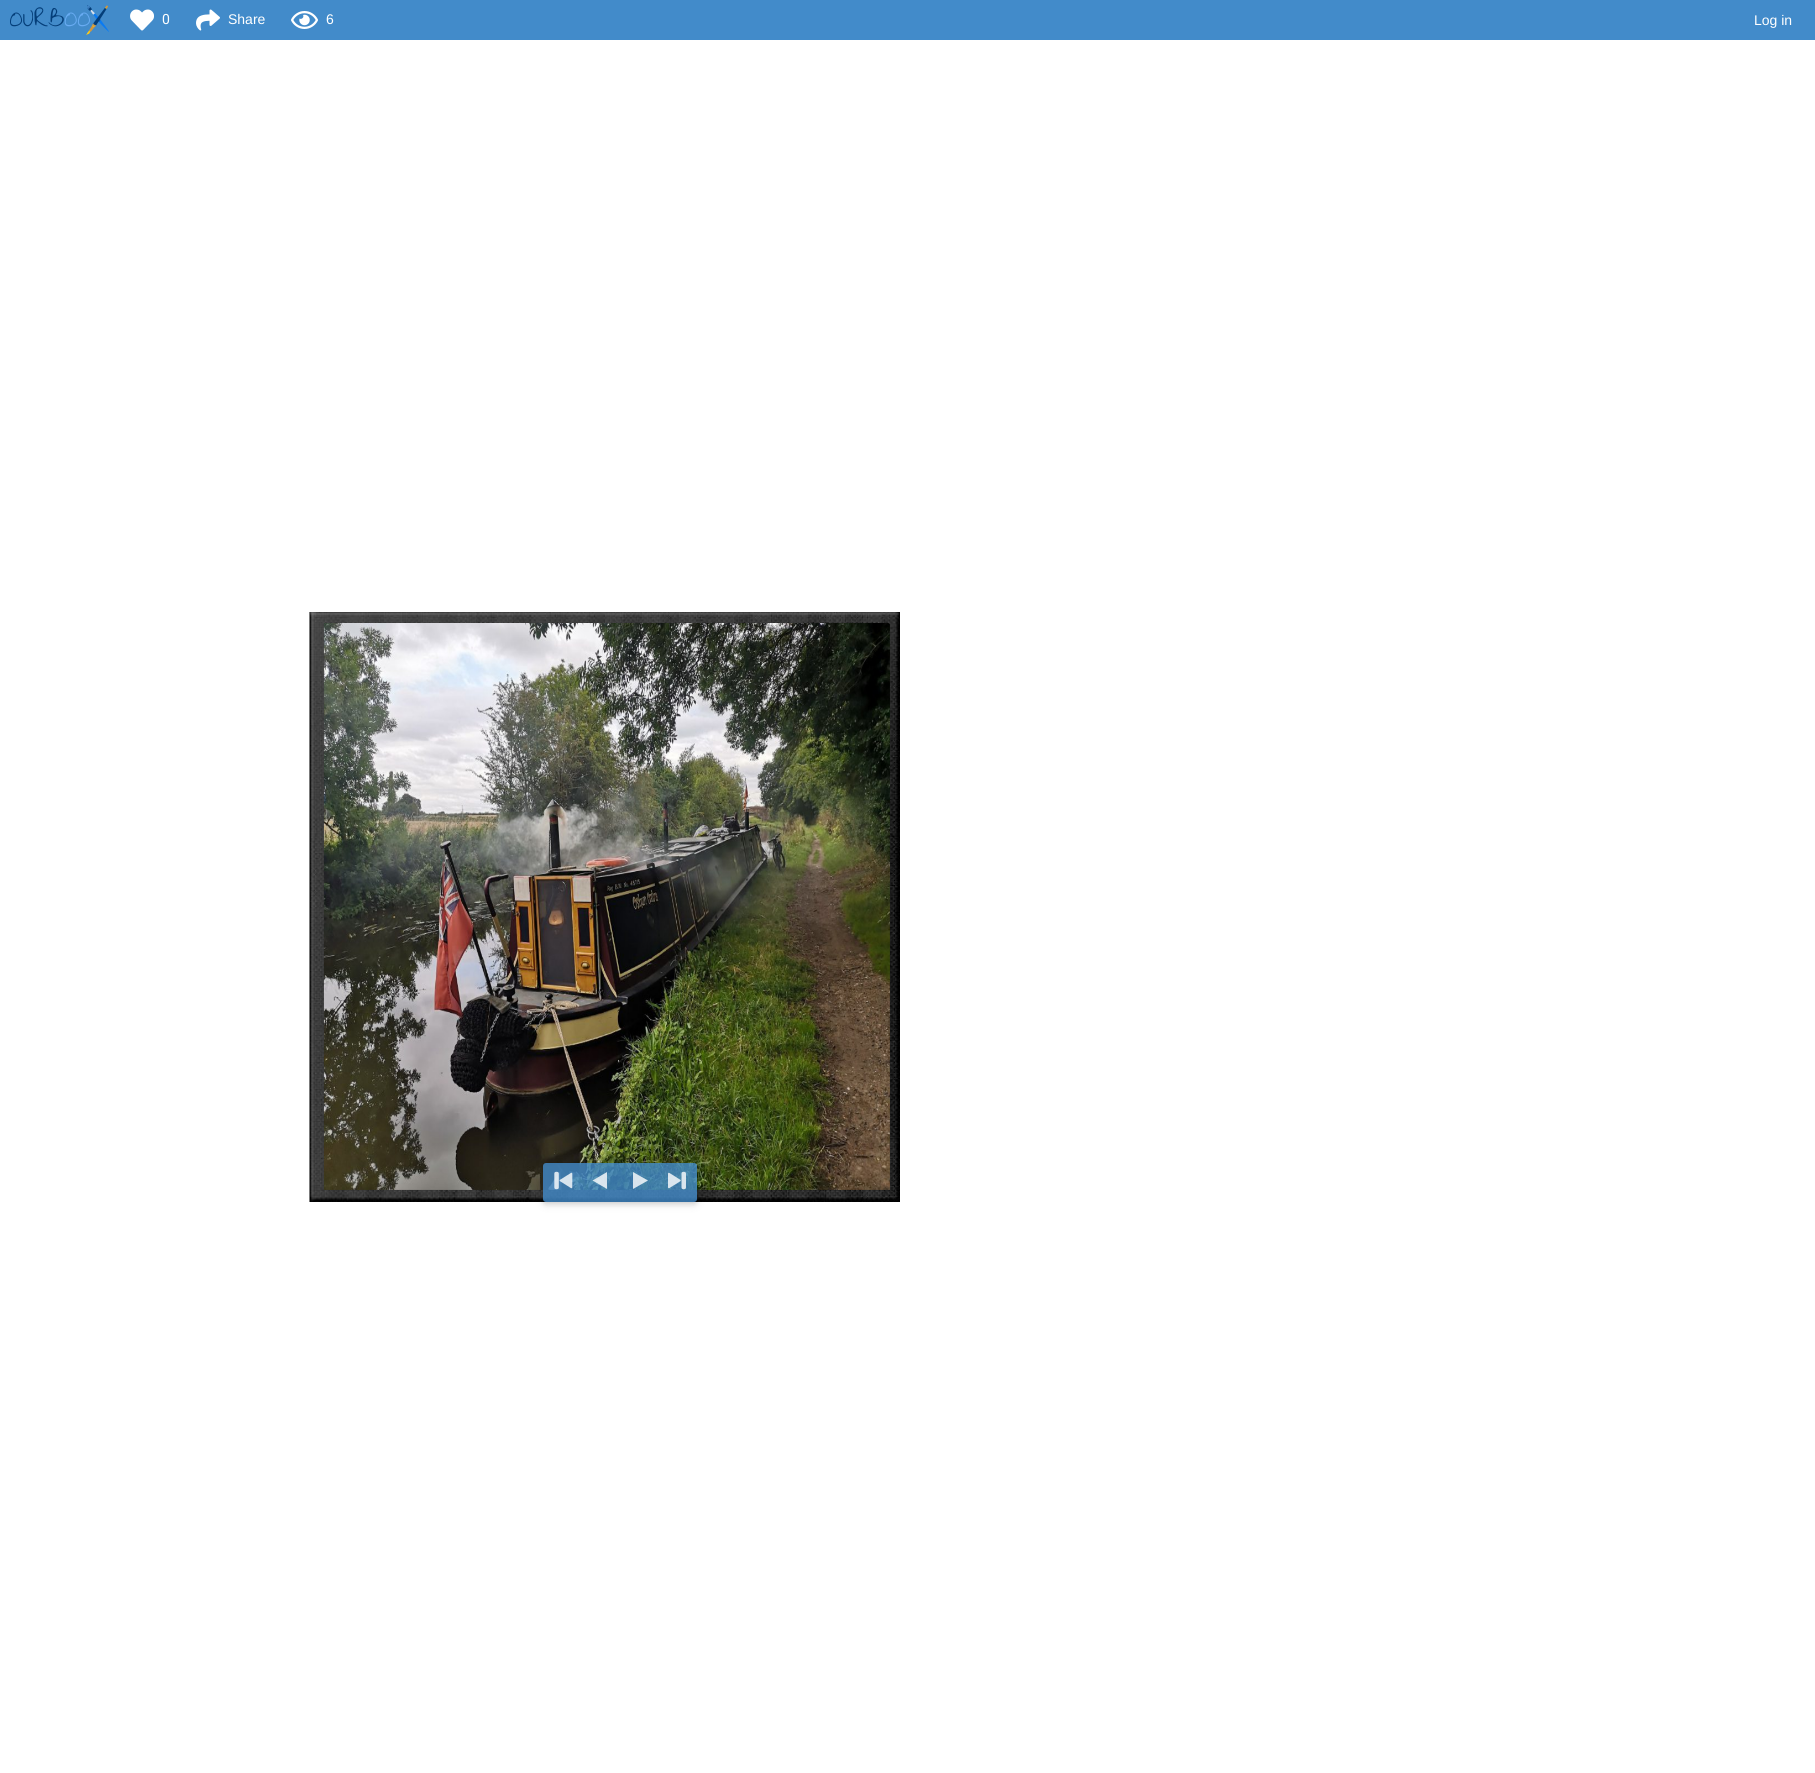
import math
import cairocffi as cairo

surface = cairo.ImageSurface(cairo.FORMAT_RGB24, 1815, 1773)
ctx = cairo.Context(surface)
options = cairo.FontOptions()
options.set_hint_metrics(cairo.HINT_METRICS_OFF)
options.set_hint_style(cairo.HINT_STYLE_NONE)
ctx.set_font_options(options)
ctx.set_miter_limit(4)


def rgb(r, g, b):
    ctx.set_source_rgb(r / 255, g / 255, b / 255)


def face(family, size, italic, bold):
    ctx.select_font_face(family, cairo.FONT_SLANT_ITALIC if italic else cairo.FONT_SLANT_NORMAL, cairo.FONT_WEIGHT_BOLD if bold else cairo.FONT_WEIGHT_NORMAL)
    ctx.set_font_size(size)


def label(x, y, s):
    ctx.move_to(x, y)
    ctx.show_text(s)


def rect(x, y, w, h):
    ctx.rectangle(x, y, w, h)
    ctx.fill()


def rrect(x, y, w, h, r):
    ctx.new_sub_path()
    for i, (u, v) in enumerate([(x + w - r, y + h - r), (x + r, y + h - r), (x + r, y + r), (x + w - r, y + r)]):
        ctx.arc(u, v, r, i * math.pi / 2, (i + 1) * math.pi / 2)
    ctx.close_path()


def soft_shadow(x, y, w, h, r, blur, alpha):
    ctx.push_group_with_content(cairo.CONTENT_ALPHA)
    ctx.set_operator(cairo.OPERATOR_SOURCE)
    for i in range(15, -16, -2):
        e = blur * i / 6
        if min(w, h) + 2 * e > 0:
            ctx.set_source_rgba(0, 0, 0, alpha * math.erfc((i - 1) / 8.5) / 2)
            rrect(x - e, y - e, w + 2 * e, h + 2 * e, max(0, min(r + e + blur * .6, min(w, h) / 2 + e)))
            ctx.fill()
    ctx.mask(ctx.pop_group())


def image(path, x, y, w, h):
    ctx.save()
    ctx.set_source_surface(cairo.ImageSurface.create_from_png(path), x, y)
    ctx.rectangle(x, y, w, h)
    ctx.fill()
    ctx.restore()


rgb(255, 255, 255)
ctx.paint()
rgb(66, 139, 202)
rect(0, 0, 1815, 40)
image('image0.png', 10, 5, 99, 30)
image('image1.png', 130, 9, 24, 22)
face('Roboto', 14, 0, 0)
rgb(255, 255, 255)
label(162, 24, '0')
image('image2.png', 196, 9, 24, 22)
face('Liberation Sans', 14, 0, 0)
label(228, 24, 'Share')
image('image3.png', 291, 11, 27, 18)
label(326, 24, '6')
label(1754, 25, 'Log in')
rgb(123, 123, 123)
rect(309, 612, 1, 590)
image('image4.png', 310, 612, 590, 590)
image('image5.png', 323, 623, 567, 567)
ctx.save()
ctx.set_fill_rule(cairo.FILL_RULE_EVEN_ODD)
ctx.new_path()
ctx.move_to(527, 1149)
ctx.line_to(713, 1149)
ctx.line_to(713, 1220)
ctx.line_to(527, 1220)
ctx.close_path()
ctx.move_to(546, 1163)
ctx.line_to(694, 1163)
ctx.curve_to(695.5, 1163, 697, 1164.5, 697, 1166)
ctx.line_to(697, 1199)
ctx.curve_to(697, 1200.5, 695.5, 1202, 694, 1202)
ctx.line_to(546, 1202)
ctx.curve_to(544.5, 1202, 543, 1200.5, 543, 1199)
ctx.line_to(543, 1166)
ctx.curve_to(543, 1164.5, 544.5, 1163, 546, 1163)
ctx.close_path()
ctx.clip()
rgb(0, 0, 0)
soft_shadow(543, 1165, 154, 39, 3, 5, 0.1)
ctx.restore()
ctx.save()
ctx.set_fill_rule(cairo.FILL_RULE_EVEN_ODD)
ctx.new_path()
ctx.move_to(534, 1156)
ctx.line_to(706, 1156)
ctx.line_to(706, 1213)
ctx.line_to(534, 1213)
ctx.close_path()
ctx.move_to(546, 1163)
ctx.line_to(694, 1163)
ctx.curve_to(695.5, 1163, 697, 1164.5, 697, 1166)
ctx.line_to(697, 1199)
ctx.curve_to(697, 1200.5, 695.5, 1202, 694, 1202)
ctx.line_to(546, 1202)
ctx.curve_to(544.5, 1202, 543, 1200.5, 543, 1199)
ctx.line_to(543, 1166)
ctx.curve_to(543, 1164.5, 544.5, 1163, 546, 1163)
ctx.close_path()
ctx.clip()
rgb(0, 0, 0)
soft_shadow(543, 1165, 154, 39, 3, 2.5, 0.13)
ctx.restore()
ctx.set_source_rgba(0.259, 0.545, 0.792, 0.8)
rrect(543, 1163, 154, 39, 3)
ctx.fill()
image('image6.png', 554, 1171, 19, 19)
ctx.set_source_rgba(1, 1, 1, 0.8)
ctx.new_path()
ctx.move_to(607, 1189)
ctx.line_to(592.5, 1180.5)
ctx.line_to(607, 1172)
ctx.close_path()
ctx.fill()
ctx.new_path()
ctx.move_to(633, 1172)
ctx.line_to(648, 1180.5)
ctx.line_to(633, 1189)
ctx.close_path()
ctx.fill()
image('image7.png', 668, 1171, 18, 19)
surface.write_to_png('render.png')
